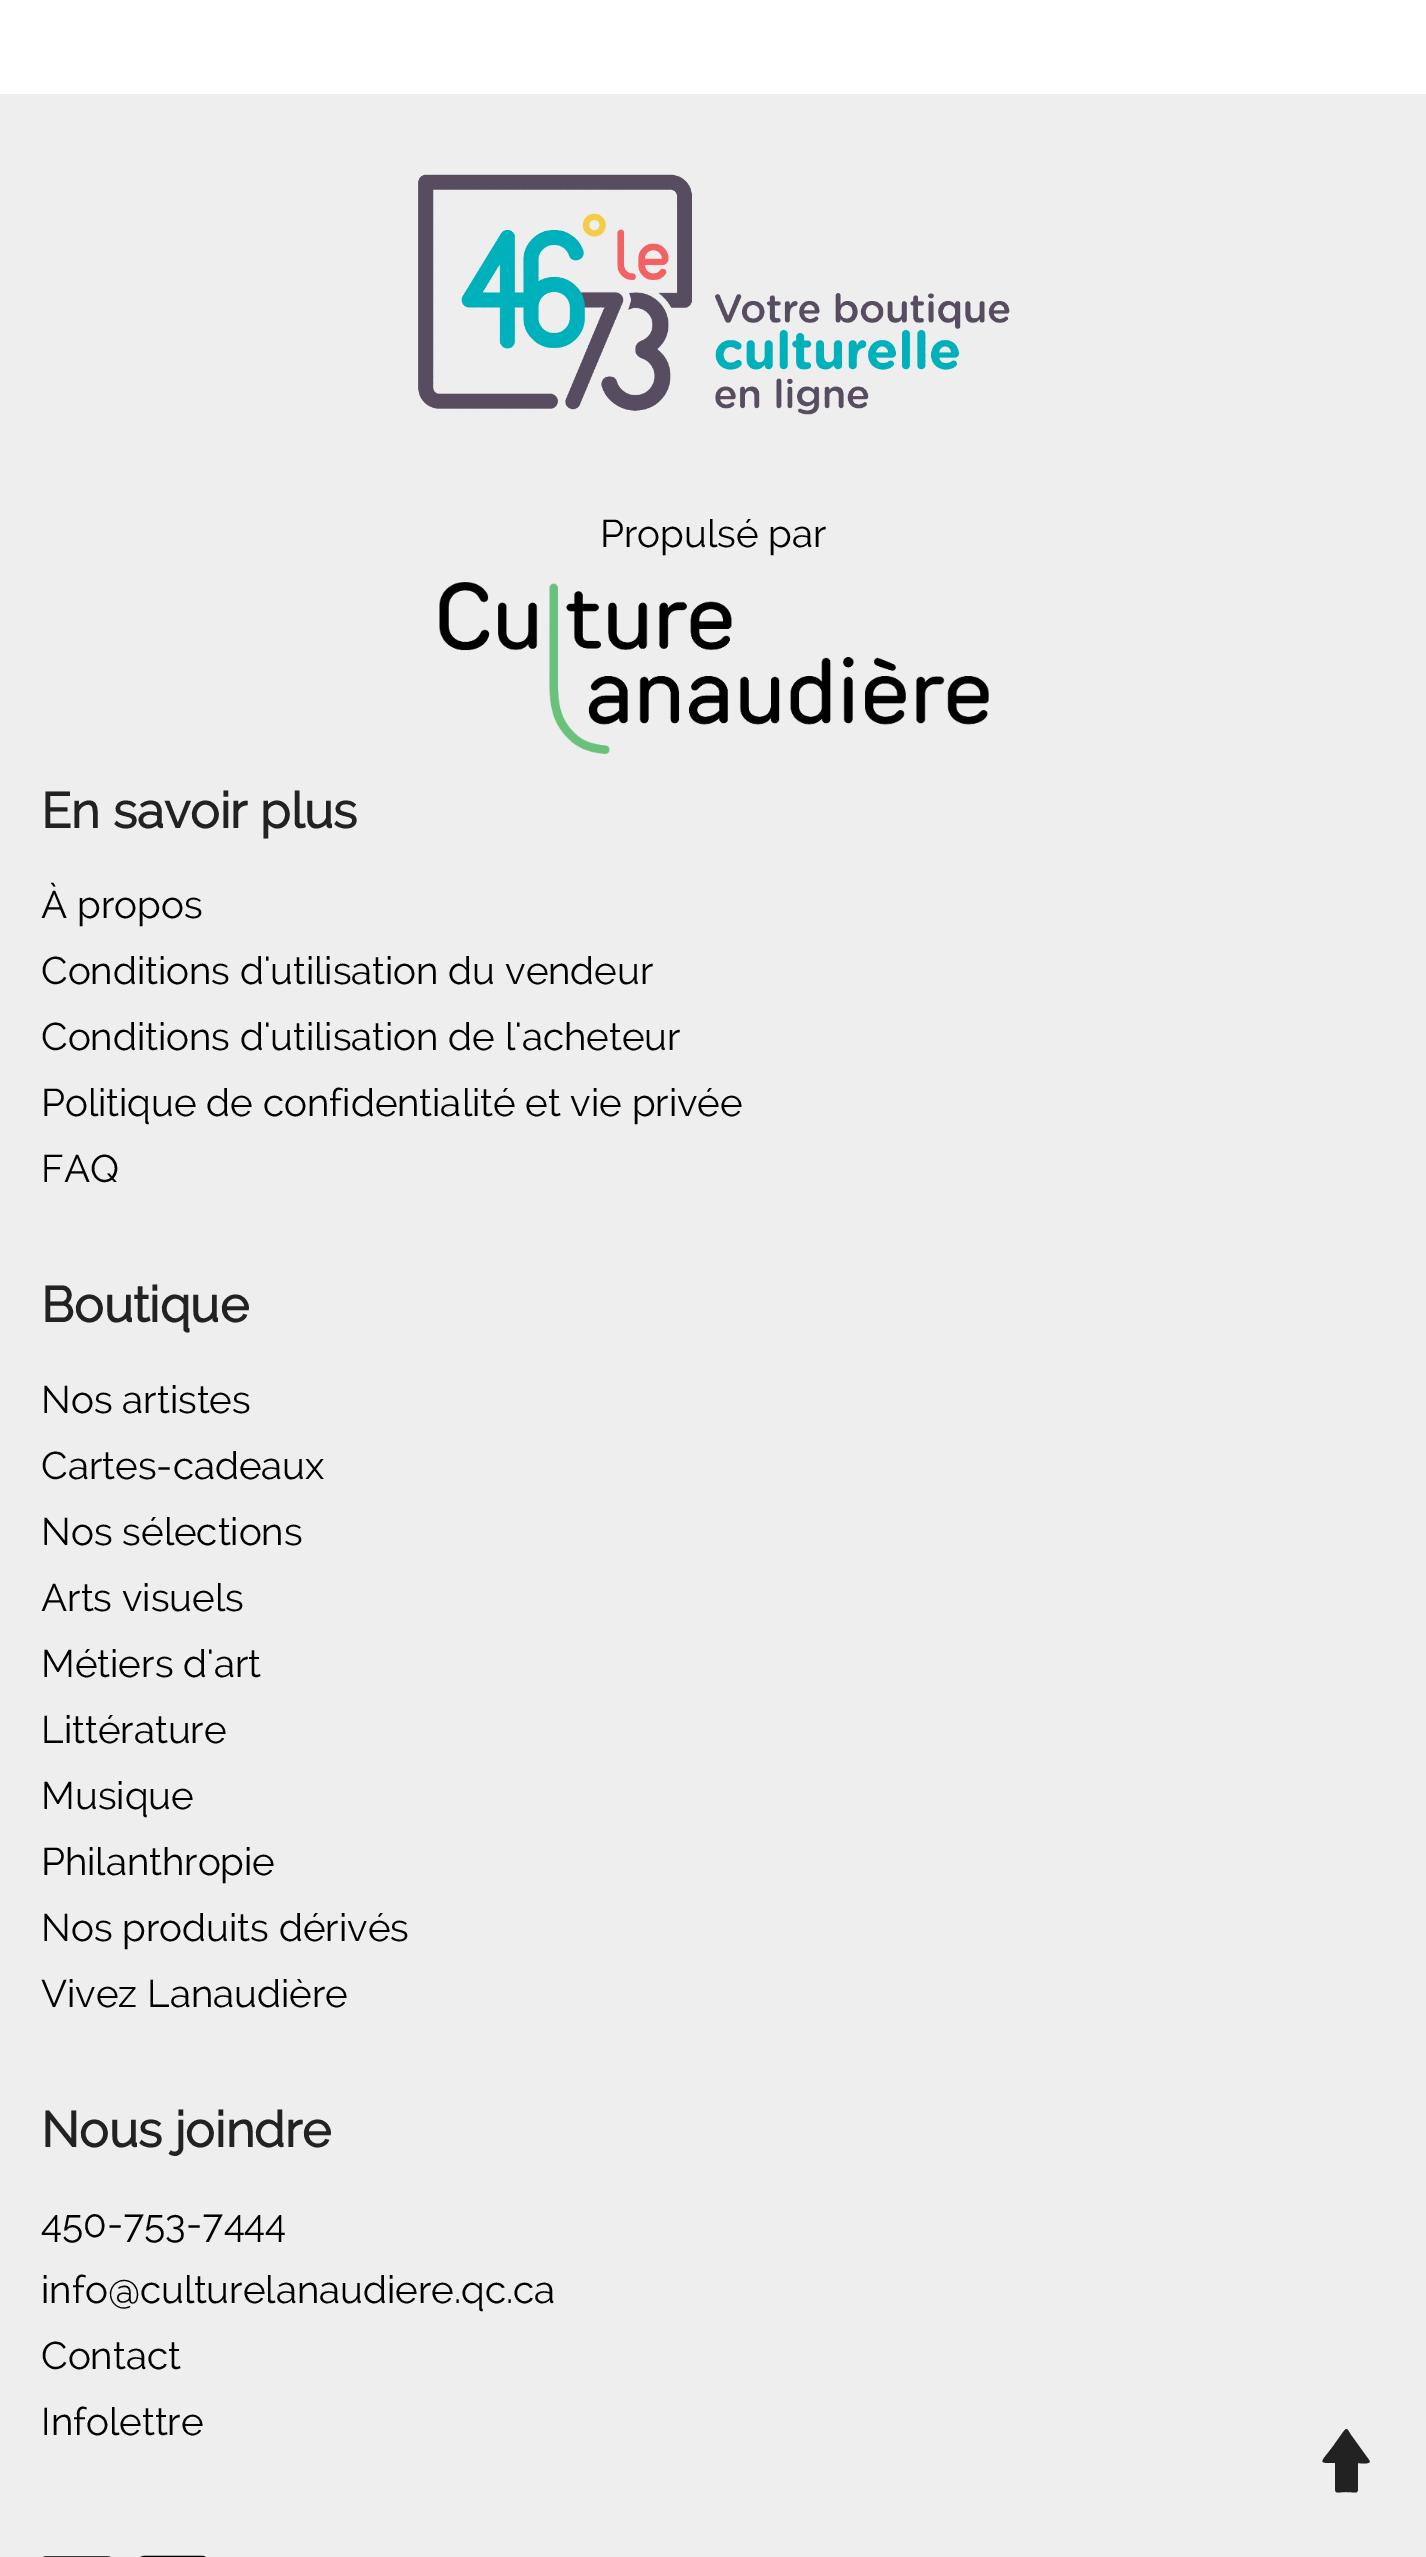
%!PS
<< /PageSize [1426 2557] >> setpagedevice
/mt/moveto load def
/li/lineto load def
/ct/curveto load def
/cp/closepath load def
/fl/fill load def
/co { dup -16 bitshift 255 div exch dup -8 bitshift 255 and 255 div exch 255 and 255 div setrgbcolor } def
/fn { [ exch dup neg 0 0 3 -1 roll 0 0 ] selectfont } def
/tx { co fn moveto show } def
/bx { co rectfill } def
/im { 5 dict begin { /h /w /y /x /name } { exch def } forall
  gsave x y translate w h scale
  w h 8 [w 0 0 h 0 0] name (r) file false 3 colorimage grestore end } def
0 2557 translate 1 -1 scale
4 setmiterlimit
0 0 1426 2557 16#FFFFFF bx
0 94 1426 2463 16#EEEEEE bx
(media/1.raw) 418 174 592 241 im
(media/2.raw) 439 582 550 172 im
(media/3.raw) 43 2556 68 1 im
(media/4.raw) 140 2555 66 2 im
16#222222 co
1369 2460 mt 1373 2465 1358 2463 1358 2463 ct 1358 2486 li 1358 2495 1357 2492 1346 2492 ct 1336 2492 1335 2495 1335 2486 ct 1335 2463 li 1316 2463 1321 2463 1334 2445 ct 1341 2435 li 1347 2427 1346 2427 1351 2435 ct cp fl
(Propulsé par) 600 547 /Raleway-Regular 38.5 16#000000 tx
(En savoir plus) 41 828 /Raleway-Bold 49.5 16#222222 tx
(À propos) 41 918 /Raleway-Regular 38.5 16#000000 tx
(Conditions d'utilisation du vendeur) 41 984 /Raleway-Regular 38.5 16#000000 tx
(Conditions d'utilisation de l'acheteur) 41 1050 /Raleway-Regular 38.5 16#000000 tx
(Politique de confidentialité et vie privée) 41 1116 /Raleway-Regular 38.5 16#000000 tx
(FAQ) 41 1182 /Raleway-Regular 38.5 16#000000 tx
(Boutique) 41 1322 /Raleway-Bold 49.5 16#222222 tx
(Nos artistes) 41 1413 /Raleway-Regular 38.5 16#000000 tx
(Cartes-cadeaux) 41 1479 /Raleway-Regular 38.5 16#000000 tx
(Nos sélections) 41 1545 /Raleway-Regular 38.5 16#000000 tx
(Arts visuels) 41 1611 /Raleway-Regular 38.5 16#000000 tx
(Métiers d'art) 41 1677 /Raleway-Regular 38.5 16#000000 tx
(Littérature) 41 1743 /Raleway-Regular 38.5 16#000000 tx
(Musique) 41 1809 /Raleway-Regular 38.5 16#000000 tx
(Philanthropie) 41 1875 /Raleway-Regular 38.5 16#000000 tx
(Nos produits dérivés) 41 1941 /Raleway-Regular 38.5 16#000000 tx
(Vivez Lanaudière) 41 2007 /Raleway-Regular 38.5 16#000000 tx
(Nous joindre) 41 2147 /Raleway-Bold 49.5 16#222222 tx
(450-753-7444) 41 2237 /Raleway-Regular 38.5 16#000000 tx
(info@culturelanaudiere.qc.ca) 41 2303 /Raleway-Regular 38.5 16#000000 tx
(Contact) 41 2369 /Raleway-Regular 38.5 16#000000 tx
(Infolettre) 41 2435 /Raleway-Regular 38.5 16#000000 tx
showpage
